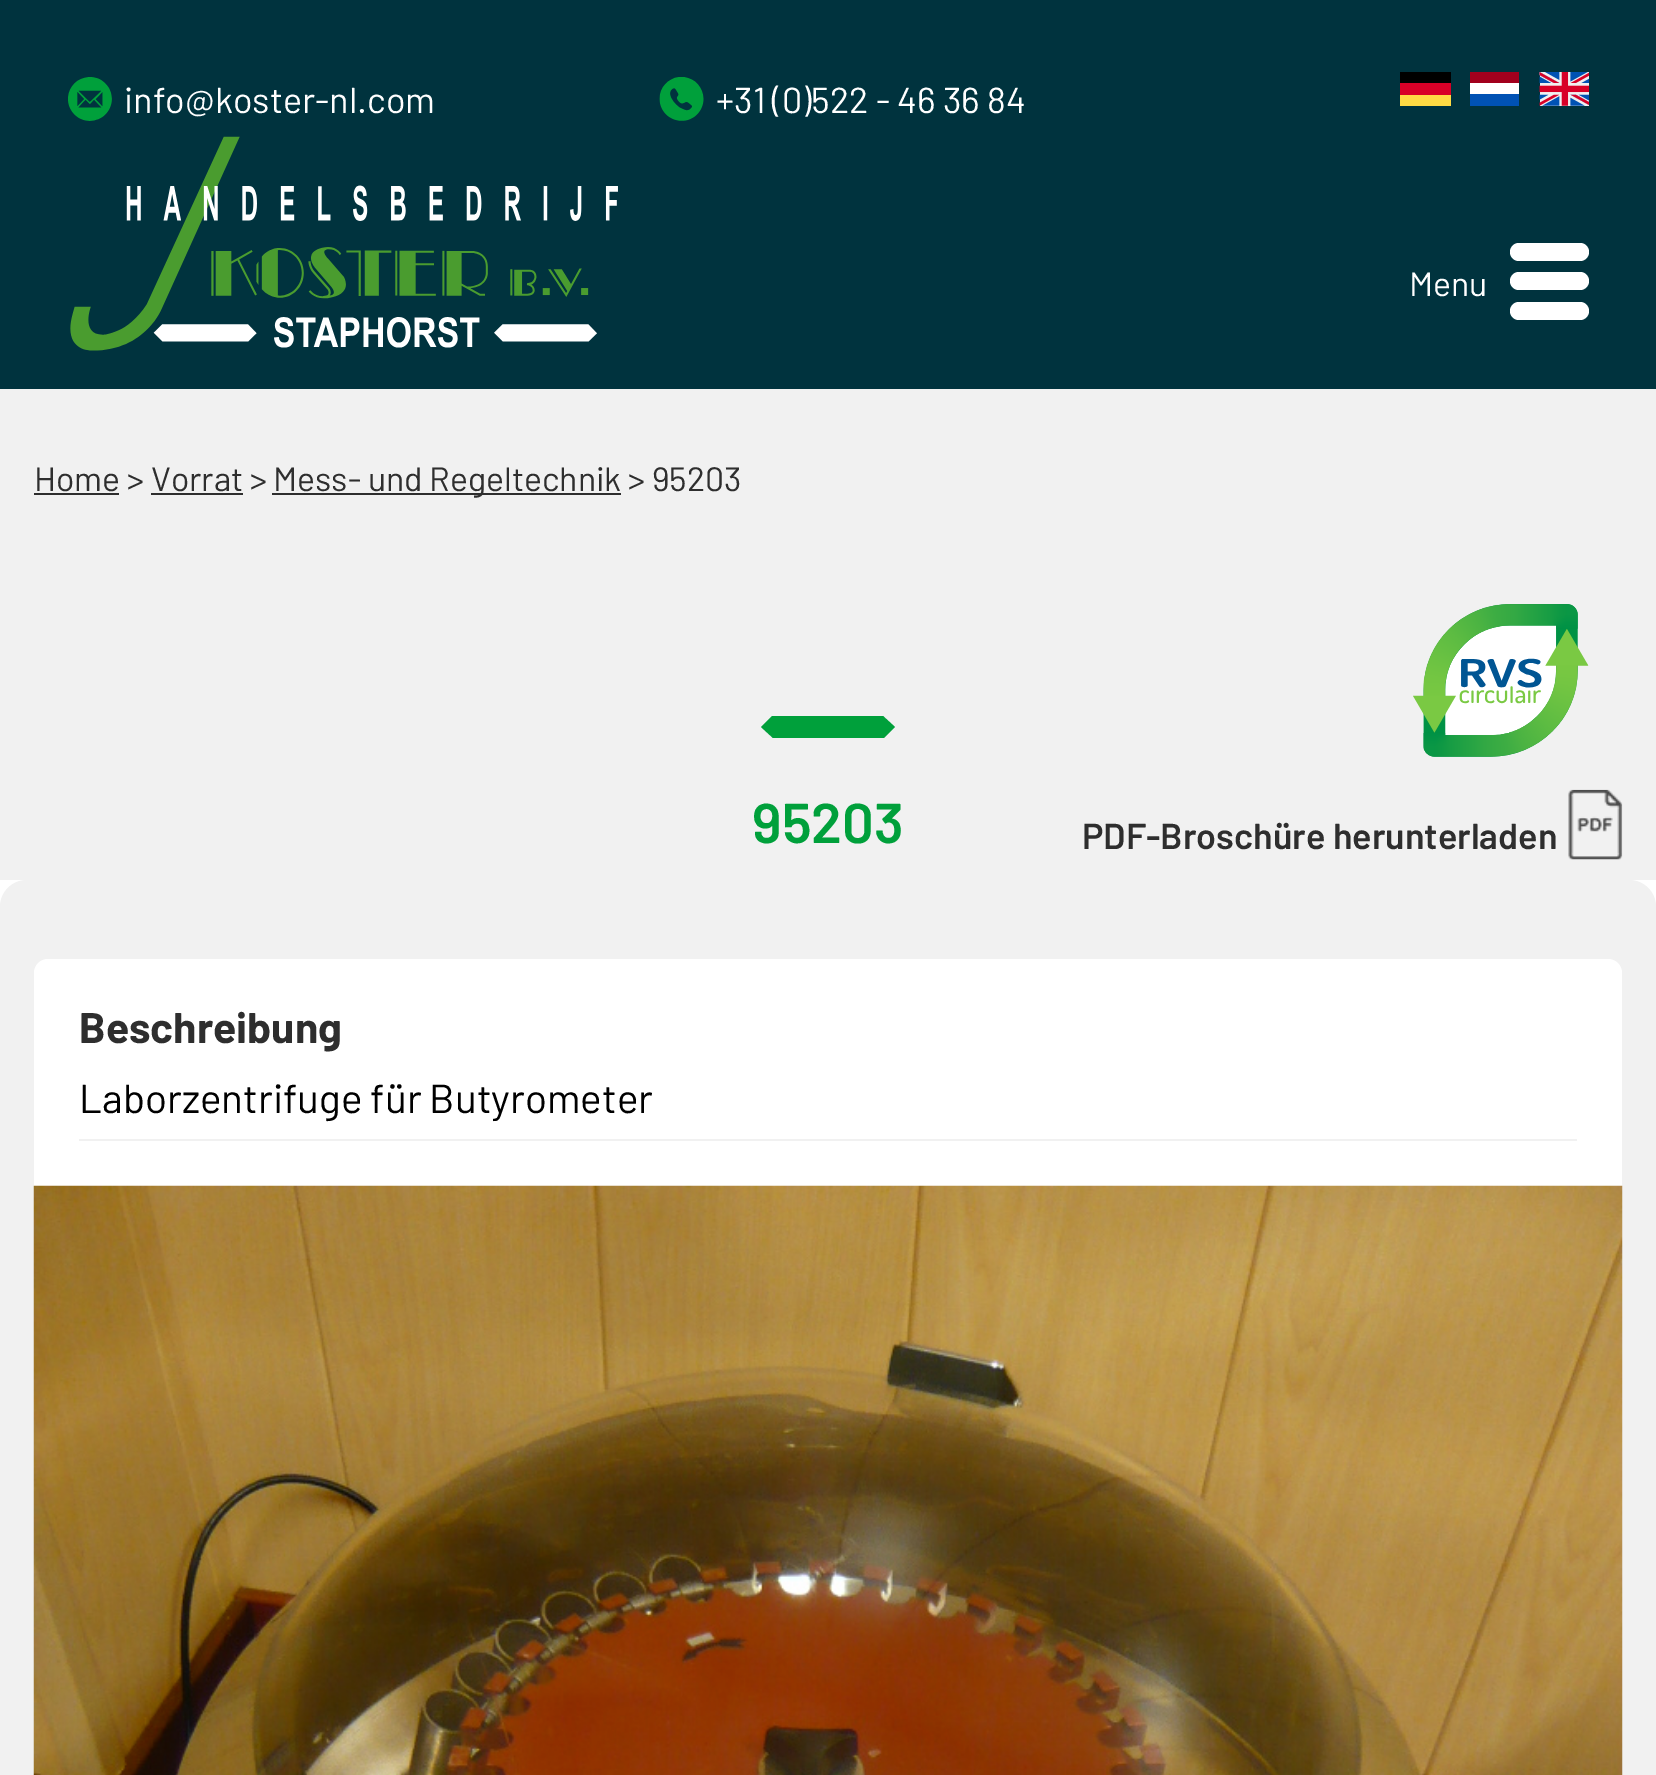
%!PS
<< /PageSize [1656 1775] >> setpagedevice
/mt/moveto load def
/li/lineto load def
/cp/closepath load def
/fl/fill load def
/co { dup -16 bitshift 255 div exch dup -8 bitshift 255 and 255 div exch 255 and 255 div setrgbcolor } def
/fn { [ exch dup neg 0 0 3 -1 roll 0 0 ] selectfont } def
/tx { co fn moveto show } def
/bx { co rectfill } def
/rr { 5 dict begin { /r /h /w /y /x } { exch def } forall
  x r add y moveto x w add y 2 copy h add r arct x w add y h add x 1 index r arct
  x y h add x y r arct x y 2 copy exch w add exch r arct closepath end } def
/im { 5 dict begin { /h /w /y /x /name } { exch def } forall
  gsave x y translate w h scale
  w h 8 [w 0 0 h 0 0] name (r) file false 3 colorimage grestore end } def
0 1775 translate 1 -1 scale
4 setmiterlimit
0 0 1656 1775 16#FFFFFF bx
0 0 1656 389 16#00333E bx
(media/1.raw) 68 77 44 44 im
(media/2.raw) 659 77 45 44 im
1400 72 51 11 16#000000 bx
1400 83 51 12 16#D80027 bx
1400 95 51 11 16#FFDA44 bx
1470 72 49 11 16#A2001D bx
1470 83 49 11 16#FFFFFF bx
1470 94 49 12 16#0052B4 bx
(media/3.raw) 1539 72 50 34 im
(media/4.raw) 70 136 548 215 im
16#FFFFFF co
1510 243 79 18 9 rr fl
1510 272 79 18 9 rr fl
1510 302 79 18 9 rr fl
0 389 1656 491 16#F1F1F1 bx
34 493 85 2 16#2E2E2E bx
151 493 92 2 16#2E2E2E bx
272 493 349 2 16#2E2E2E bx
16#00A03B co
772 716 mt 761 727 li 773 738 li 884 738 li 895 727 li 883 716 li cp fl
(media/5.raw) 1413 604 176 153 im
(media/6.raw) 1568 789 55 71 im
16#F1F1F1 co
0 880 1656 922 27 rr fl
16#FFFFFF co
34 959 1588 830 14 rr fl
79 1139 1498 2 16#F1F1F1 bx
(media/7.raw) 33 1185 1590 590 im
(info@koster-nl.com) 124 113 /Barlow-Regular 36 16#FFFFFF tx
(+31 \(0\)522 - 46 36 84) 716 113 /Barlow-Regular 36 16#FFFFFF tx
(Menu) 1409 296 /Barlow-Regular 33.75 16#FFFFFF tx
(Home > Vorrat >) 34 491 /Barlow-Regular 33.75 16#2E2E2E tx
(Mess- und Regeltechnik > 95203) 273 491 /Barlow-Regular 33.75 16#2E2E2E tx
(95203) 752 843 /Barlow-SemiBold 56 16#00A03B tx
(PDF-Broschüre herunterladen) 1082 849 /Barlow-SemiBold 36 16#2E2E2E tx
(Beschreibung) 79 1043 /Barlow-Bold 42.75 16#2E2E2E tx
(Laborzentrifuge für Butyrometer) 79 1113 /Barlow-Regular 40.5 16#000000 tx
showpage
